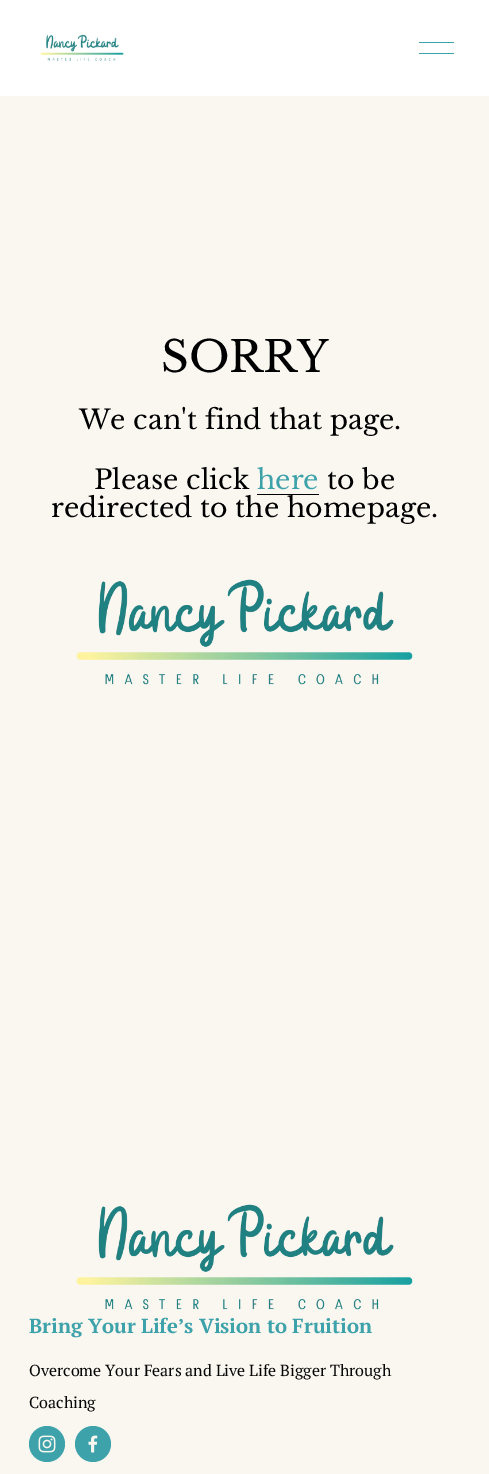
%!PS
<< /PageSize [489 1474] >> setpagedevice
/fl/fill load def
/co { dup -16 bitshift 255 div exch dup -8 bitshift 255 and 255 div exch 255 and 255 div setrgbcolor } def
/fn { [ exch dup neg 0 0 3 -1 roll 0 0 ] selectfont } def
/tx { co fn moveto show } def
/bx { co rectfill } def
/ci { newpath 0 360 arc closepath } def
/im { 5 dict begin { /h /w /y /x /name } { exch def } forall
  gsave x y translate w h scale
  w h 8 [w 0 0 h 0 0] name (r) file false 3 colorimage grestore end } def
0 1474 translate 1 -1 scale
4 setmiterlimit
0 0 489 1474 16#FAF7F1 bx
0 0 489 96 16#FFFFFF bx
(media/1.raw) 40 34 84 27 im
419 42 35 1 16#3EA2AA bx
419 53 35 1 16#3EA2AA bx
257 494 62 1 16#000000 bx
(media/2.raw) 76 579 337 106 im
(media/3.raw) 76 1204 337 106 im
16#3EA2AA co
47 1444 18 ci fl
(media/4.raw) 38 1435 18 18 im
93 1444 18 ci fl
(media/5.raw) 88 1435 10 18 im
(SORRY) 161 372 /LibreBaskerville-Regular 43 16#000000 tx
(We can't find that page.) 79 429 /LibreBaskerville-Regular 26.75 16#000000 tx
(Please click) 94 489 /LibreBaskerville-Regular 26.75 16#000000 tx
(here) 257 489 /LibreBaskerville-Regular 26.75 16#3EA2AA tx
(to be) 327 489 /LibreBaskerville-Regular 26.75 16#000000 tx
(redirected to the homepage.) 51 517 /LibreBaskerville-Regular 26.75 16#000000 tx
(Bring Your Life’s Vision to Fruition) 29 1333 /PTSerif-Bold 20.3 16#3EA2AA tx
(Overcome Your Fears and Live Life Bigger Through) 29 1376 /PTSerif-Regular 16 16#060606 tx
(Coaching) 29 1408 /PTSerif-Regular 16 16#060606 tx
showpage
